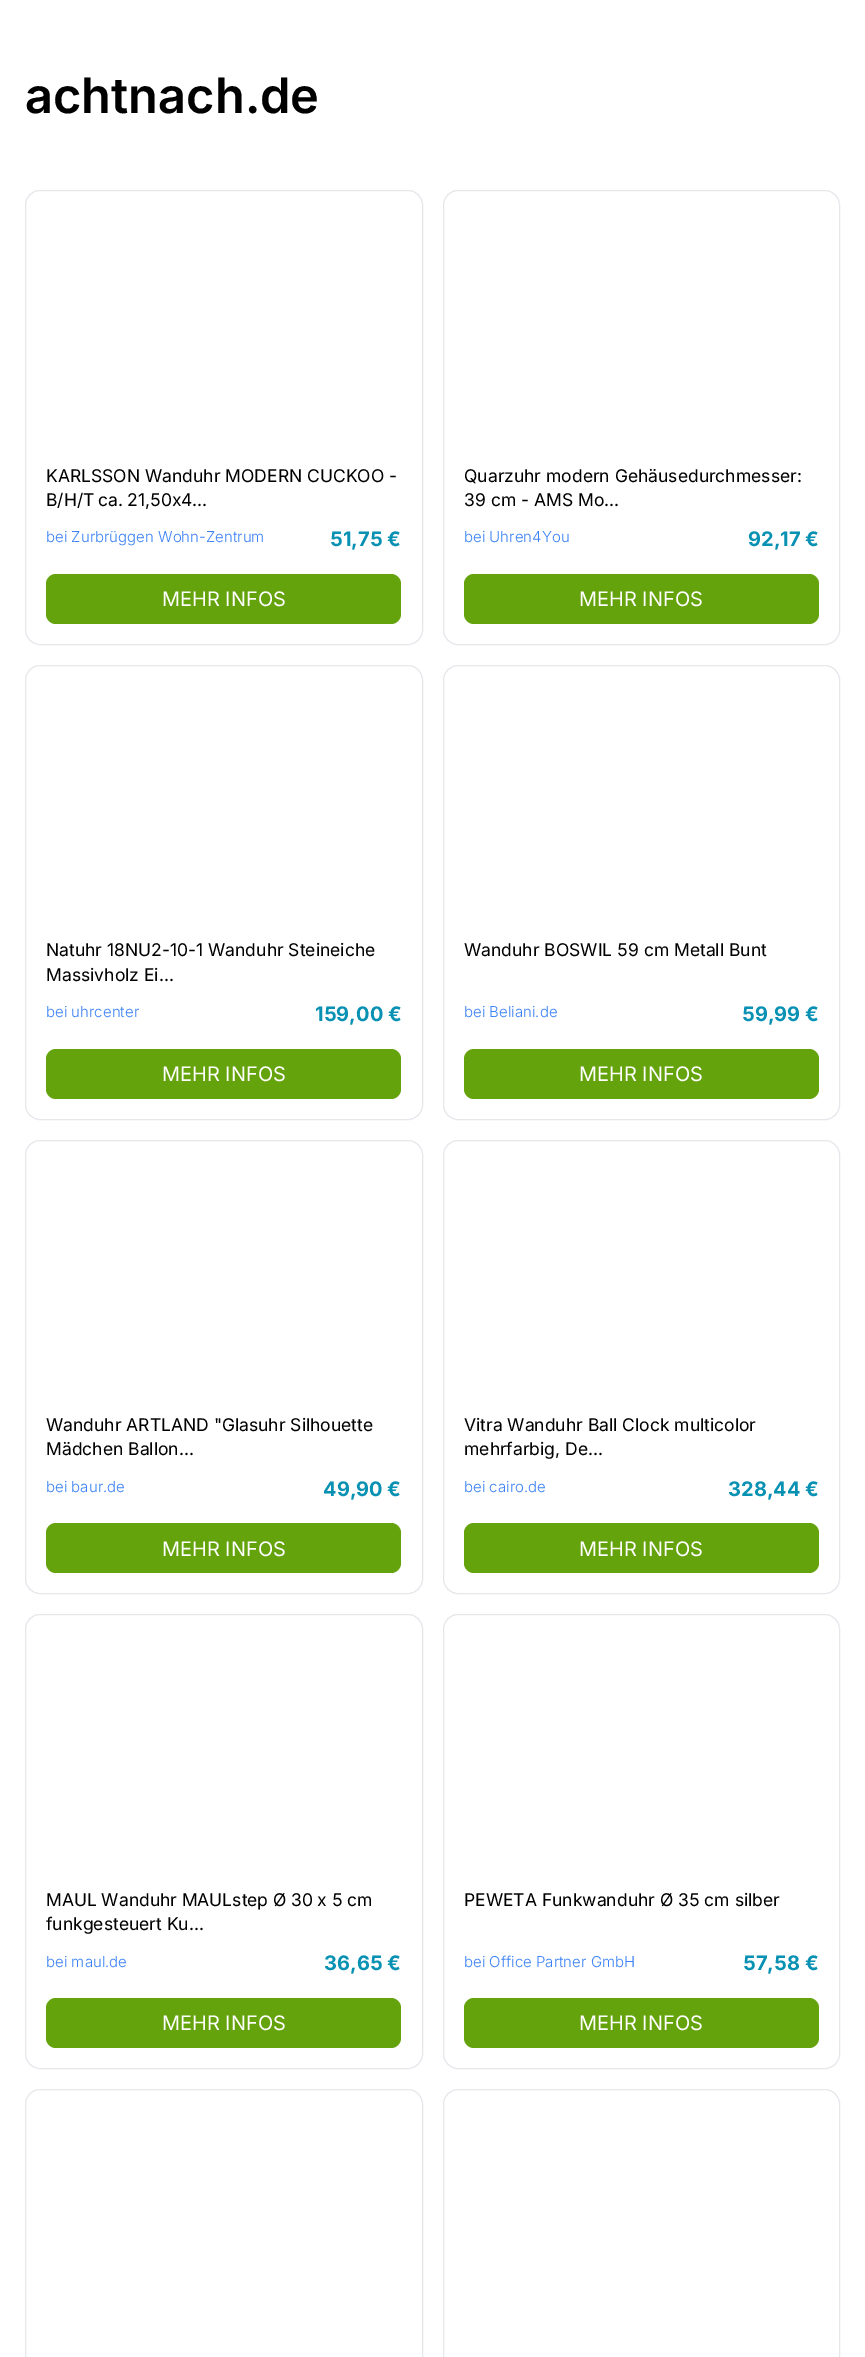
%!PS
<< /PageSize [865 2357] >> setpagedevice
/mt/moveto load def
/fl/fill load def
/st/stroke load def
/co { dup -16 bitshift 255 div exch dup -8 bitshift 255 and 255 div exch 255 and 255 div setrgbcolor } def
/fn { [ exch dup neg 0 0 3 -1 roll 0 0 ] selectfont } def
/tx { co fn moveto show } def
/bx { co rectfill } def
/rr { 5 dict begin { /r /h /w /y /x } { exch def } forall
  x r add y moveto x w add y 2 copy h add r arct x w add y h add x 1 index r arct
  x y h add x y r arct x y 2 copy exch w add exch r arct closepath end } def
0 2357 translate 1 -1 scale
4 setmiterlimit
0 0 865 2357 16#FFFFFF bx
16#E5E7EB co
25.5 190.5 397 454 14.5 rr st
16#65A30D co
46 574 355 50 10 rr fl
16#E5E7EB co
443.5 190.5 396 454 14.5 rr st
16#65A30D co
464 574 355 50 10 rr fl
16#E5E7EB co
25.5 665.5 397 454 14.5 rr st
16#65A30D co
46 1049 355 50 10 rr fl
16#E5E7EB co
443.5 665.5 396 454 14.5 rr st
16#65A30D co
464 1049 355 50 10 rr fl
16#E5E7EB co
25.5 1140.5 397 453 14.5 rr st
16#65A30D co
46 1523 355 50 10 rr fl
16#E5E7EB co
443.5 1140.5 396 453 14.5 rr st
16#65A30D co
464 1523 355 50 10 rr fl
16#E5E7EB co
25.5 1614.5 397 454 14.5 rr st
16#65A30D co
46 1998 355 50 10 rr fl
16#E5E7EB co
443.5 1614.5 396 454 14.5 rr st
16#65A30D co
464 1998 355 50 10 rr fl
16#E5E7EB co
25.5 2089.5 397 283 14.5 rr st
443.5 2089.5 396 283 14.5 rr st
(achtnach.de) 25 113 /Inter-SemiBold 48.75 16#000000 tx
(KARLSSON Wanduhr MODERN CUCKOO -) 46 482 /Inter-Regular 17.5 16#000000 tx
46 506 mt -1 0 32 (B/H/T ca. 21,50x4...) widthshow
(bei Zurbrüggen Wohn-Zentrum) 46 542 /Inter-Light 15 16#3B82F6 tx
(51,75 €) 330 546 /Inter-Bold 20 16#0891B2 tx
(MEHR INFOS) 162 606 /Inter-Regular 20 16#FFFFFF tx
(Quarzuhr modern Gehäusedurchmesser:) 464 482 /Inter-Regular 17.5 16#000000 tx
(39 cm - AMS Mo...) 464 506 /Inter-Regular 17.5 16#000000 tx
(bei Uhren4You) 464 542 /Inter-Light 15 16#3B82F6 tx
(92,17 €) 748 546 /Inter-Bold 20 16#0891B2 tx
(MEHR INFOS) 579 606 /Inter-Regular 20 16#FFFFFF tx
(Natuhr 18NU2-10-1 Wanduhr Steineiche) 46 956 /Inter-Regular 17.5 16#000000 tx
(Massivholz Ei...) 46 981 /Inter-Regular 17.5 16#000000 tx
(bei uhrcenter) 46 1017 /Inter-Light 15 16#3B82F6 tx
(159,00 €) 315 1021 /Inter-Bold 20 16#0891B2 tx
(MEHR INFOS) 162 1081 /Inter-Regular 20 16#FFFFFF tx
(Wanduhr BOSWIL 59 cm Metall Bunt) 464 956 /Inter-Regular 17.5 16#000000 tx
(bei Beliani.de) 464 1017 /Inter-Light 15 16#3B82F6 tx
(59,99 €) 742 1021 /Inter-Bold 20 16#0891B2 tx
(MEHR INFOS) 579 1081 /Inter-Regular 20 16#FFFFFF tx
(Wanduhr ARTLAND "Glasuhr Silhouette) 46 1431 /Inter-Regular 17.5 16#000000 tx
(Mädchen Ballon...) 46 1455 /Inter-Regular 17.5 16#000000 tx
(bei baur.de) 46 1492 /Inter-Light 15 16#3B82F6 tx
(49,90 €) 323 1496 /Inter-Bold 20 16#0891B2 tx
(MEHR INFOS) 162 1556 /Inter-Regular 20 16#FFFFFF tx
(Vitra Wanduhr Ball Clock multicolor) 464 1431 /Inter-Regular 17.5 16#000000 tx
(mehrfarbig, De...) 464 1455 /Inter-Regular 17.5 16#000000 tx
(bei cairo.de) 464 1492 /Inter-Light 15 16#3B82F6 tx
(328,44 €) 728 1496 /Inter-Bold 20 16#0891B2 tx
(MEHR INFOS) 579 1556 /Inter-Regular 20 16#FFFFFF tx
/Inter-Regular 17.5 fn
16#000000 co
46 1906 mt -.25 0 32 (MAUL Wanduhr MAULstep Ø 30 x 5 cm) widthshow
(funkgesteuert Ku...) 46 1930 /Inter-Regular 17.5 16#000000 tx
(bei maul.de) 46 1967 /Inter-Light 15 16#3B82F6 tx
(36,65 €) 324 1970 /Inter-Bold 20 16#0891B2 tx
(MEHR INFOS) 162 2030 /Inter-Regular 20 16#FFFFFF tx
(PEWETA Funkwanduhr Ø 35 cm silber) 464 1906 /Inter-Regular 17.5 16#000000 tx
(bei Office Partner GmbH) 464 1967 /Inter-Light 15 16#3B82F6 tx
(57,58 €) 743 1970 /Inter-Bold 20 16#0891B2 tx
(MEHR INFOS) 579 2030 /Inter-Regular 20 16#FFFFFF tx
showpage
